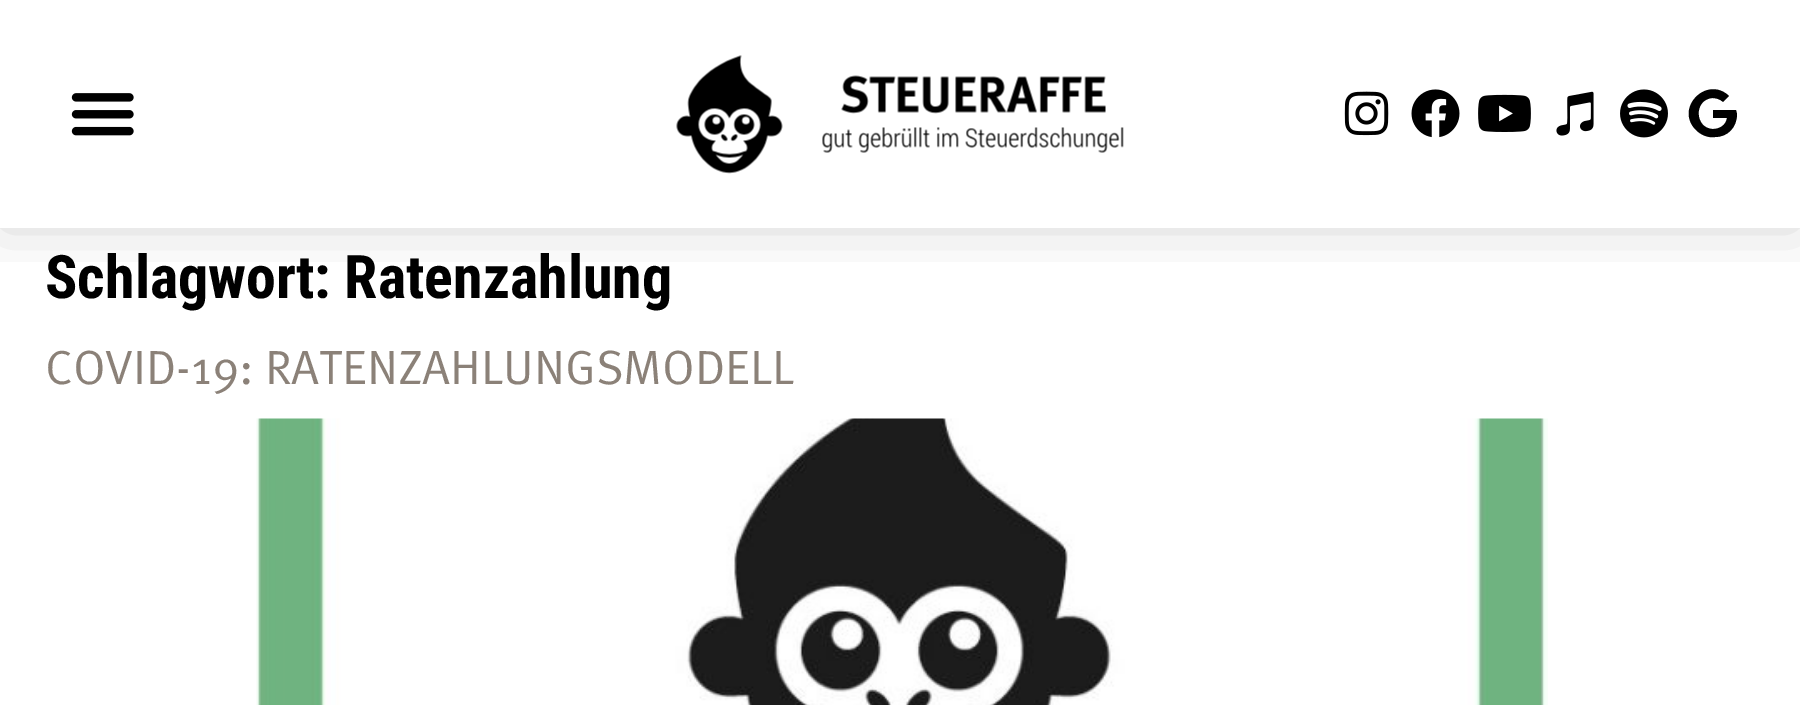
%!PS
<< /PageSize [1800 705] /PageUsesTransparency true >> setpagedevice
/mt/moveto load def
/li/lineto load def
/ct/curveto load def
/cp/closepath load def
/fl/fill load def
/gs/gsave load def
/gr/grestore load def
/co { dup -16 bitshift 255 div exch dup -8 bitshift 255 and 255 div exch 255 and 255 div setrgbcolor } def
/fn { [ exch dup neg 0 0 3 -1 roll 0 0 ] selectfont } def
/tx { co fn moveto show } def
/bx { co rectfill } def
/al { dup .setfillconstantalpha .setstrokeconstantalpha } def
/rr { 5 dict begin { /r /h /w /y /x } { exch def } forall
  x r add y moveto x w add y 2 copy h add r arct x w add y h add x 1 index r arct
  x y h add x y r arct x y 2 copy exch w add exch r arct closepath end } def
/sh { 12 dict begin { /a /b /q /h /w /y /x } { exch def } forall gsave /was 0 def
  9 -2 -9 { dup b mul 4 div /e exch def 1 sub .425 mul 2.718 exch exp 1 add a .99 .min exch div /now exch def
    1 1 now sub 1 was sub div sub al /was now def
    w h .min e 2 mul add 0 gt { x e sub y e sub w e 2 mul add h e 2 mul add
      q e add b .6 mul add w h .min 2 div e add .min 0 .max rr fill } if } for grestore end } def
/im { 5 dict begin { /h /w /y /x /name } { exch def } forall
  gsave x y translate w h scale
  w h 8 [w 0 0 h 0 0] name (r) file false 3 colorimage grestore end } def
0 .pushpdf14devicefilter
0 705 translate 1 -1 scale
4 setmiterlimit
0 0 1800 705 16#FFFFFF bx
gs
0 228 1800 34 rectclip
16#000000 co
0 0 1800 228 0 30 .16 sh
gr
(media/1.raw) 71 93 63 43 im
(media/2.raw) 676 55 448 119 im
(media/3.raw) 1344 91 45 45 im
(media/4.raw) 1411 89 49 49 im
(media/5.raw) 1478 94 53 38 im
(media/6.raw) 1556 91 38 45 im
(media/7.raw) 1620 89 48 49 im
16#000000 co
1737 114 mt 1737 127 1728 137 1715 137 ct 1708 138 1701 135 1696 130 ct 1674 108 1707 75 1729 96 ct 1723 102 li 1720 99 1716 98 1712 98 ct 1693 100 1695 129 1713 129 ct 1720 129 1726 125 1727 118 ct 1713 118 li 1713 110 li 1736 110 li cp fl
(media/8.raw) 256 418 1292 287 im
(Schlagwort: Ratenzahlung) 45 298 /RobotoCondensed-Bold 60 16#000000 tx
(COVID-19: RATENZAHLUNGSMODELL) 45 384 /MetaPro-Regular 48 16#8B8178 tx
.poppdf14devicefilter showpage
